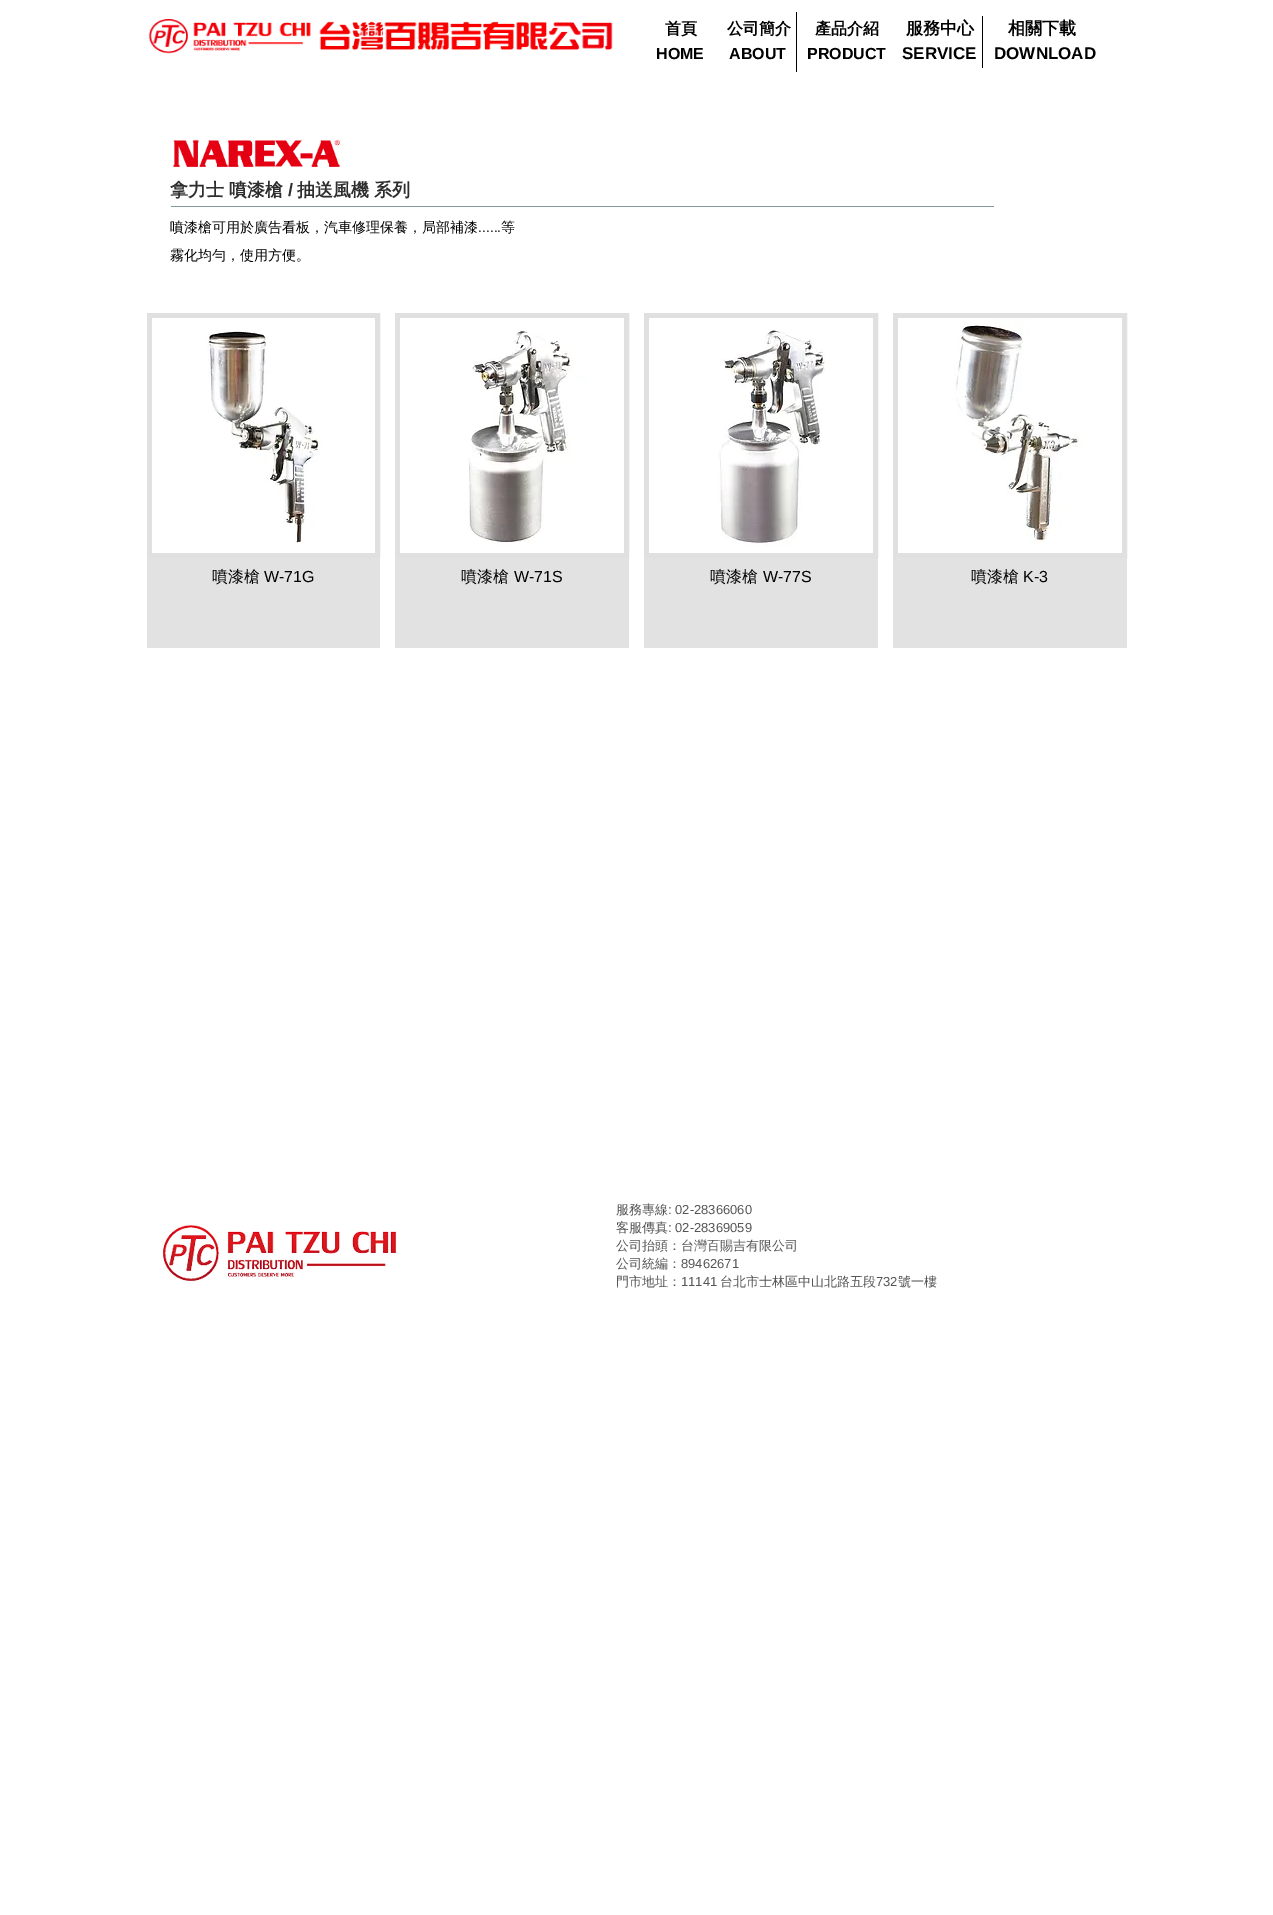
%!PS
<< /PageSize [1273 1915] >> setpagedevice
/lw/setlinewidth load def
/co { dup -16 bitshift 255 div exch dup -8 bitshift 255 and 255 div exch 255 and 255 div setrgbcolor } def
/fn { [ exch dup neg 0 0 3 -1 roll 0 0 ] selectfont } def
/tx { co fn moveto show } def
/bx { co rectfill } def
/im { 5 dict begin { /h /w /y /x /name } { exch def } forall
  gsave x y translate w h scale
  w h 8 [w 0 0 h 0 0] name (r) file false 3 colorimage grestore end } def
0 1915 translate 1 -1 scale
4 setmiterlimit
0 0 1273 1915 16#FFFFFF bx
(media/1.raw) 148 19 465 35 im
796 12 1 60 16#000000 bx
982 16 1 52 16#000000 bx
(media/2.raw) 173 140 168 27 im
171 206 823 1 16#829A9F bx
16#E0E0E0 co
5 lw
149.5 315.5 228 240 rectstroke
(media/3.raw) 152 318 223 235 im
147 558 233 90 16#E2E2E2 bx
16#E0E0E0 co
397.5 315.5 229 240 rectstroke
(media/4.raw) 400 318 224 235 im
395 558 234 90 16#E2E2E2 bx
16#E0E0E0 co
646.5 315.5 229 240 rectstroke
(media/5.raw) 649 318 224 235 im
644 558 234 90 16#E2E2E2 bx
16#E0E0E0 co
895.5 315.5 229 240 rectstroke
(media/6.raw) 898 318 224 235 im
893 558 234 90 16#E2E2E2 bx
(media/7.raw) 163 1225 234 56 im
(首頁) 665 34 /WenQuanYiZenHei-Bold 16 16#000000 tx
(公司簡介) 727 34 /WenQuanYiZenHei-Bold 16 16#000000 tx
(產品介紹) 815 34 /WenQuanYiZenHei-Bold 16 16#000000 tx
(服務中心) 906 34 /WenQuanYiZenHei-Bold 17 16#000000 tx
(相關下載) 1008 34 /WenQuanYiZenHei-Bold 17 16#000000 tx
(HOME) 656 59 /LiberationSans-Bold 16 16#000000 tx
(ABOUT) 729 59 /LiberationSans-Bold 16 16#000000 tx
(PRODUCT) 807 59 /LiberationSans-Bold 16 16#000000 tx
(SERVICE) 902 59 /LiberationSans-Bold 17 16#000000 tx
(DOWNLOAD) 994 59 /LiberationSans-Bold 17 16#000000 tx
(拿力士 噴漆槍) 170 196 /WenQuanYiZenHei-Bold 18 16#2F2E2E tx
(/) 288 196 /LiberationSans-Bold 18 16#2F2E2E tx
(抽送風機 系列) 297 196 /WenQuanYiZenHei-Bold 18 16#2F2E2E tx
(噴漆槍可用於廣告看板，汽車修理保養，局部補漆) 170 232 /WenQuanYiZenHei-Medium 14 16#000000 tx
(......) 478 232 /LiberationSans-Regular 14 16#000000 tx
(等) 501 232 /WenQuanYiZenHei-Medium 14 16#000000 tx
(霧化均勻，使用方便。) 170 260 /WenQuanYiZenHei-Medium 14 16#000000 tx
(噴漆槍) 212 582 /WenQuanYiZenHei-Medium 16 16#000000 tx
(W-71G) 264 582 /LiberationSans-Regular 16 16#000000 tx
(噴漆槍) 461 582 /WenQuanYiZenHei-Medium 16 16#000000 tx
(W-71S) 514 582 /LiberationSans-Regular 16 16#000000 tx
(噴漆槍) 710 582 /WenQuanYiZenHei-Medium 16 16#000000 tx
(W-77S) 763 582 /LiberationSans-Regular 16 16#000000 tx
(噴漆槍) 971 582 /WenQuanYiZenHei-Medium 16 16#000000 tx
(K-3) 1023 582 /LiberationSans-Regular 16 16#000000 tx
(服務專線) 616 1214 /WenQuanYiZenHei-Medium 13 16#545454 tx
(: 02-28366060) 668 1214 /LiberationSans-Regular 13 16#545454 tx
(客服傳真) 616 1232 /WenQuanYiZenHei-Medium 13 16#545454 tx
(: 02-28369059) 668 1232 /LiberationSans-Regular 13 16#545454 tx
(公司抬頭：台灣百賜吉有限公司) 616 1250 /WenQuanYiZenHei-Medium 13 16#545454 tx
(公司統編：) 616 1268 /WenQuanYiZenHei-Medium 13 16#545454 tx
(89462671) 681 1268 /LiberationSans-Regular 13 16#545454 tx
(門市地址：) 616 1286 /WenQuanYiZenHei-Medium 13 16#545454 tx
(11141) 681 1286 /LiberationSans-Regular 13 16#545454 tx
(台北市士林區中山北路五段) 720 1286 /WenQuanYiZenHei-Medium 13 16#545454 tx
(732) 876 1286 /LiberationSans-Regular 13 16#545454 tx
(號一樓) 898 1286 /WenQuanYiZenHei-Medium 13 16#545454 tx
showpage
